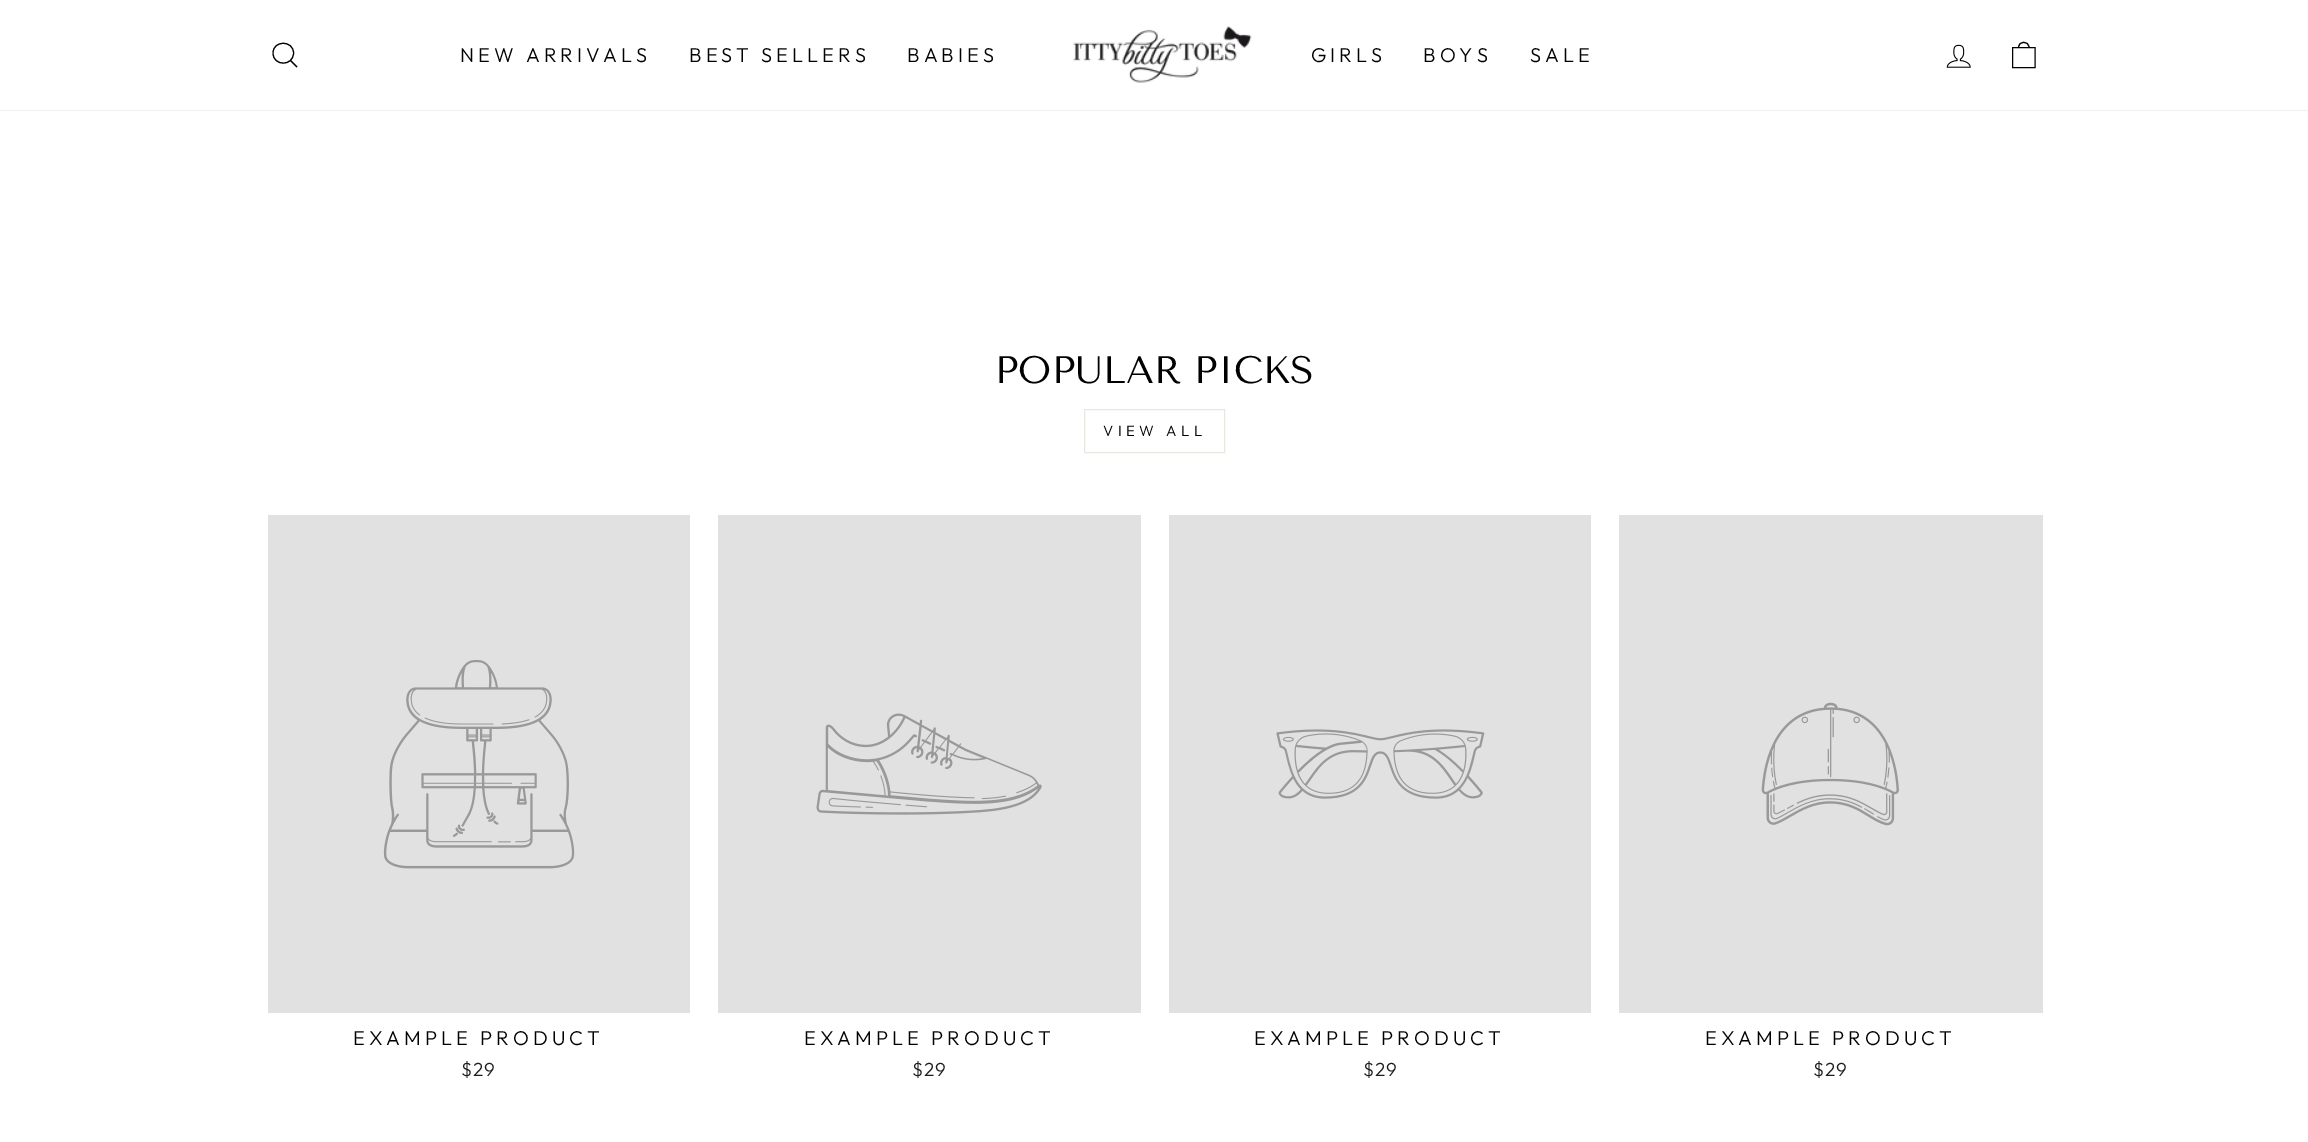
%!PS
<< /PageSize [2308 1142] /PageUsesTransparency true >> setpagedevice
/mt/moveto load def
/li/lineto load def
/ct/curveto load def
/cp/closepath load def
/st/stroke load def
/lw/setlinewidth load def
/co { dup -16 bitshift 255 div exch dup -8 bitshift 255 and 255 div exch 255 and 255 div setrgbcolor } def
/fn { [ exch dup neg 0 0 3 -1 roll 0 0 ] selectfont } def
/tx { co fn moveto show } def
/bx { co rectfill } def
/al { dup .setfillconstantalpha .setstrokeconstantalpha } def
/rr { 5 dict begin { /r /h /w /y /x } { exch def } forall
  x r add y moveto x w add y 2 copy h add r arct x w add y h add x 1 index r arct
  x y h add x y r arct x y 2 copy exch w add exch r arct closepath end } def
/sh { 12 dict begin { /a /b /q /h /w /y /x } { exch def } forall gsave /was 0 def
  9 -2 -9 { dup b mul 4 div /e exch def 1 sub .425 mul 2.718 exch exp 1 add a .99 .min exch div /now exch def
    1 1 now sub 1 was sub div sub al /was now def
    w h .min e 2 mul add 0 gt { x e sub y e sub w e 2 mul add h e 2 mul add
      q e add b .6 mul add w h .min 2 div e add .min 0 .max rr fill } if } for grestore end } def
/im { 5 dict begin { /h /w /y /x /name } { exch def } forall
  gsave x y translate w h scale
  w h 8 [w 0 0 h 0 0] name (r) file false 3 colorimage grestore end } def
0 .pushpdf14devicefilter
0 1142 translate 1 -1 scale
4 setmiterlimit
0 0 2308 1142 16#FFFFFF bx
16#000000 co
0 0 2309 110 0 .5 .2 sh
0 0 2308 110 16#FFFFFF bx
16#000000 co
1.1 lw
293.5 53 mt 293.5 66.5 273 66.5 273 53 ct 273 40 293.5 40 293.5 53 ct cp 297 67 mt 290.5 60.5 li st
(media/1.raw) 1073 26 179 57 im
(media/2.raw) 1946 44 25 24 im
2012.5 47.5 mt 2035 47.5 li 2035 67.5 li 2012.5 67.5 li cp 2018.5 47.5 mt 2018.5 40.5 2029 40.5 2029 47.5 ct st
16#E8E8E1 co
1 lw
1084.5 409.5 140 43 rectstroke
268 515 422 498 16#E1E1E1 bx
(media/3.raw) 383 660 192 209 im
718 515 423 498 16#E1E1E1 bx
(media/4.raw) 816 713 226 102 im
1169 515 422 498 16#E1E1E1 bx
(media/5.raw) 1276 729 209 70 im
1619 515 424 498 16#E1E1E1 bx
(media/6.raw) 1761 702 138 124 im
/Outfit-Light 20 fn
16#000000 co
460 62 mt 4 0 (NEW ARRIVALS) ashow
689 62 mt 4 0 (BEST SELLERS) ashow
907 62 mt 4 0 (BABIES) ashow
1311 62 mt 4 0 (GIRLS) ashow
1423 62 mt 4 0 (BOYS) ashow
1530 62 mt 4 0 (SALE) ashow
(POPULAR PICKS) 995 383 /TenorSans-Regular 38.25 16#000000 tx
/Outfit-Light 15 fn
1103 436 mt 4.5 0 (VIEW ALL) ashow
/Outfit-Light 20 fn
353 1045 mt 4 0 (EXAMPLE PRODUCT) ashow
/Outfit-Light 19 fn
16#1C1D1D co
461 1076 mt .5 0 ($29) ashow
/Outfit-Light 20 fn
16#000000 co
804 1045 mt 4 0 (EXAMPLE PRODUCT) ashow
/Outfit-Light 19 fn
16#1C1D1D co
912 1076 mt .5 0 ($29) ashow
/Outfit-Light 20 fn
16#000000 co
1254 1045 mt 4 0 (EXAMPLE PRODUCT) ashow
/Outfit-Light 19 fn
16#1C1D1D co
1363 1076 mt .5 0 ($29) ashow
/Outfit-Light 20 fn
16#000000 co
1705 1045 mt 4 0 (EXAMPLE PRODUCT) ashow
/Outfit-Light 19 fn
16#1C1D1D co
1813 1076 mt .5 0 ($29) ashow
.poppdf14devicefilter showpage
